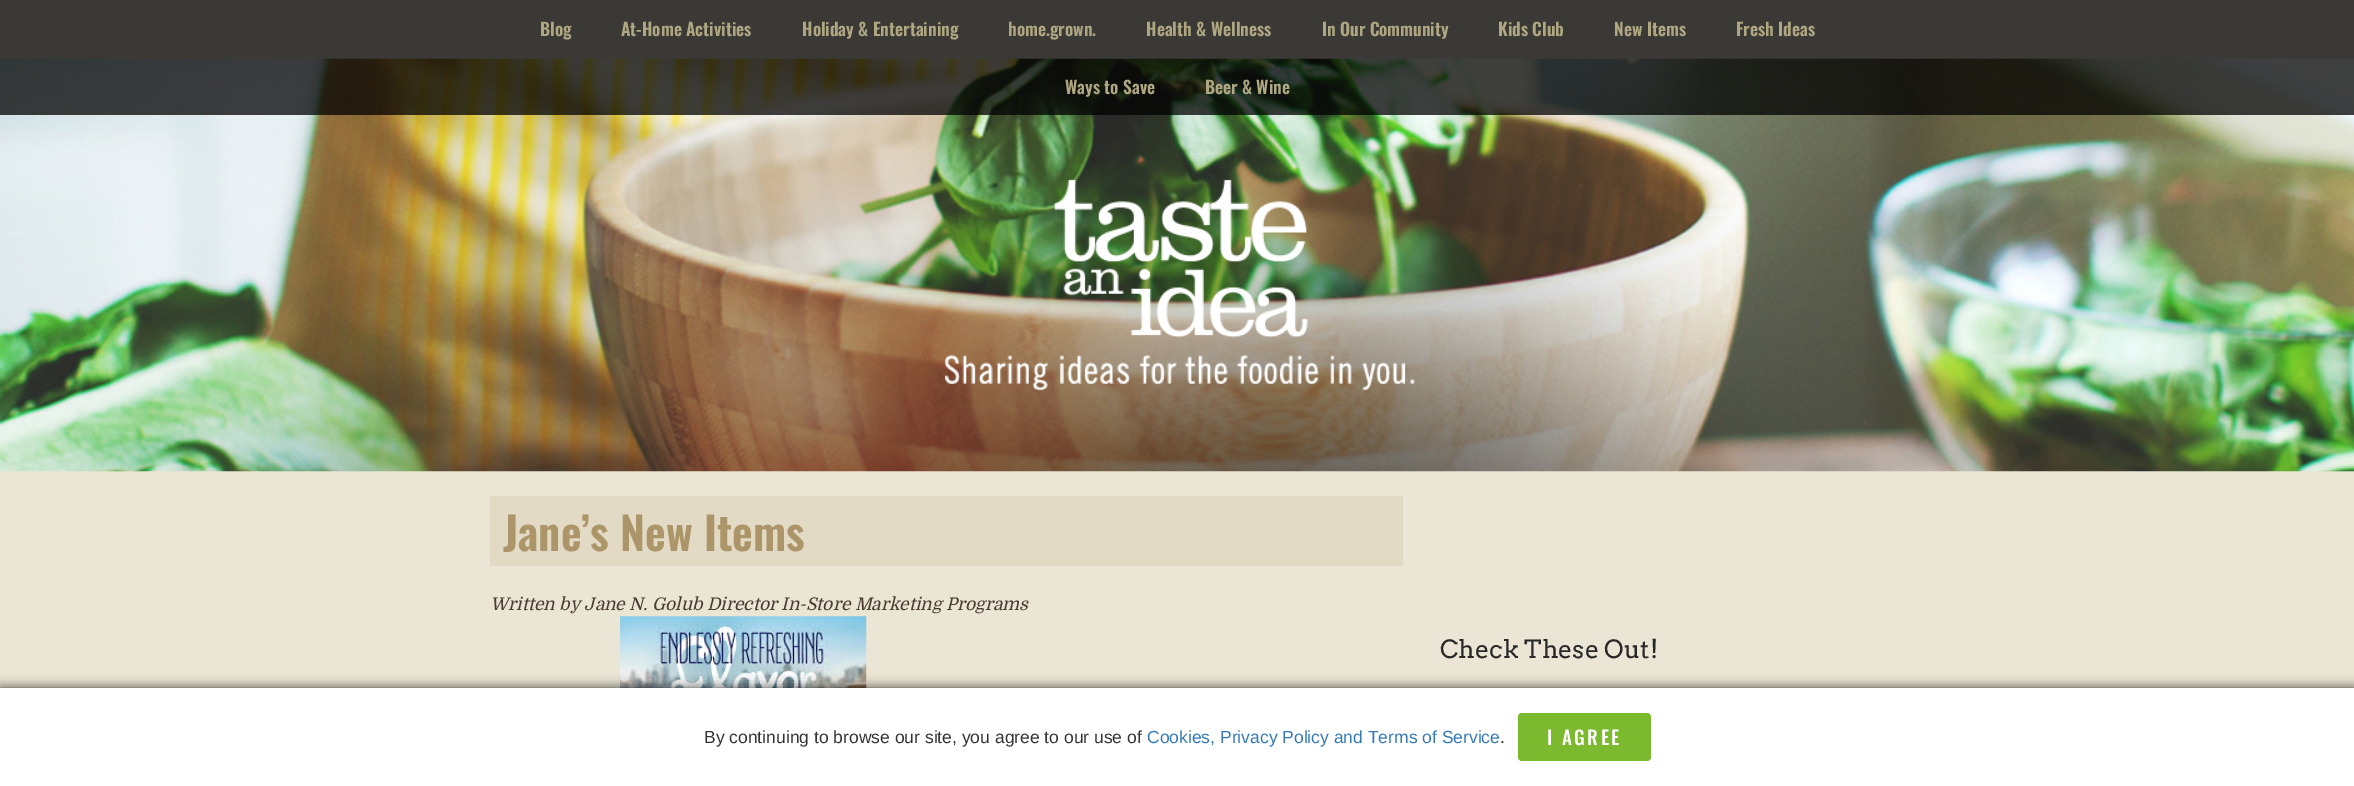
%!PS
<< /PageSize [2354 786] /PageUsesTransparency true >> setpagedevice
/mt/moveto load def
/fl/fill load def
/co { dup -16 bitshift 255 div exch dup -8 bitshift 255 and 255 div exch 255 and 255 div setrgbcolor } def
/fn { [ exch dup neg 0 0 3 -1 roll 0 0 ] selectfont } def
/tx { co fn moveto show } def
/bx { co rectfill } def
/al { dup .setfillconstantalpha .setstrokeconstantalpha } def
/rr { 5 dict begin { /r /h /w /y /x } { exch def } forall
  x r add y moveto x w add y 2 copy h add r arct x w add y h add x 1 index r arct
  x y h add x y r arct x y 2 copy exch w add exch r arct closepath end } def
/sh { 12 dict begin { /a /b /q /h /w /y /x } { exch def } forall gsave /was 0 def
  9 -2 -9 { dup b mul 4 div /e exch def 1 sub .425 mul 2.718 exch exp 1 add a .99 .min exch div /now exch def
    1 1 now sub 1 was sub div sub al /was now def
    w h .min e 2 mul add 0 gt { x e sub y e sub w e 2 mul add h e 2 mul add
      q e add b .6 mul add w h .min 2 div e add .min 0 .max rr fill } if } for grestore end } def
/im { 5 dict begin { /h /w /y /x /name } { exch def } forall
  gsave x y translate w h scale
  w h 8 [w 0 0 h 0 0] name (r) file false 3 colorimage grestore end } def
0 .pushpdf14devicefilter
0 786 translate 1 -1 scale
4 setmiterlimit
0 0 2354 786 16#EBE5D5 bx
(media/1.raw) 0 58 2354 414 im
0.75 al
0 0 2354 115 16#000000 bx
1 al
(media/2.raw) 944 179 472 212 im
490 496 913 70 16#E2DAC4 bx
(media/3.raw) 620 616 247 72 im
16#000000 co
0 688 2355 98 0 6 .75 sh
0 688 2354 98 16#FFFFFF bx
16#7BBA2F co
1518 713 133 48 4 rr fl
(Blog) 540 36 /Oswald-SemiBold 17.5 16#AFA782 tx
(At-Home Activities) 621 36 /Oswald-SemiBold 17.5 16#AFA782 tx
(Holiday & Entertaining) 802 36 /Oswald-SemiBold 17.5 16#AFA782 tx
(home.grown.) 1008 36 /Oswald-SemiBold 17.5 16#AFA782 tx
(Health & Wellness) 1146 36 /Oswald-SemiBold 17.5 16#AFA782 tx
(In Our Community) 1322 36 /Oswald-SemiBold 17.5 16#AFA782 tx
(Kids Club) 1498 36 /Oswald-SemiBold 17.5 16#AFA782 tx
(New Items) 1614 36 /Oswald-SemiBold 17.5 16#AFA782 tx
(Fresh Ideas) 1736 36 /Oswald-SemiBold 17.5 16#AFA782 tx
(Ways to Save) 1065 94 /Oswald-SemiBold 17.5 16#AFA782 tx
(Beer & Wine) 1205 94 /Oswald-SemiBold 17.5 16#AFA782 tx
(Jane’s New Items) 503 551 /Oswald-SemiBold 45 16#AC9669 tx
(Written by Jane N. Golub Director In-Store Marketing Programs) 490 610 /Domine-Italic 17.5 16#4A3C31 tx
(Check These Out!) 1440 658 /Arvo-Regular 25 16#282828 tx
(By continuing to browse our site, you agree to our use of) 704 743 /LiberationSans-Regular 17.5 16#333333 tx
(Cookies, Privacy Policy and Terms of Service) 1147 743 /LiberationSans-Regular 17.5 16#337AB7 tx
(.) 1500 743 /LiberationSans-Regular 17.5 16#333333 tx
/Oswald-Medium 19 fn
16#FFFFFF co
1547 745 mt 2.5 0 (I AGREE) ashow
.poppdf14devicefilter showpage
